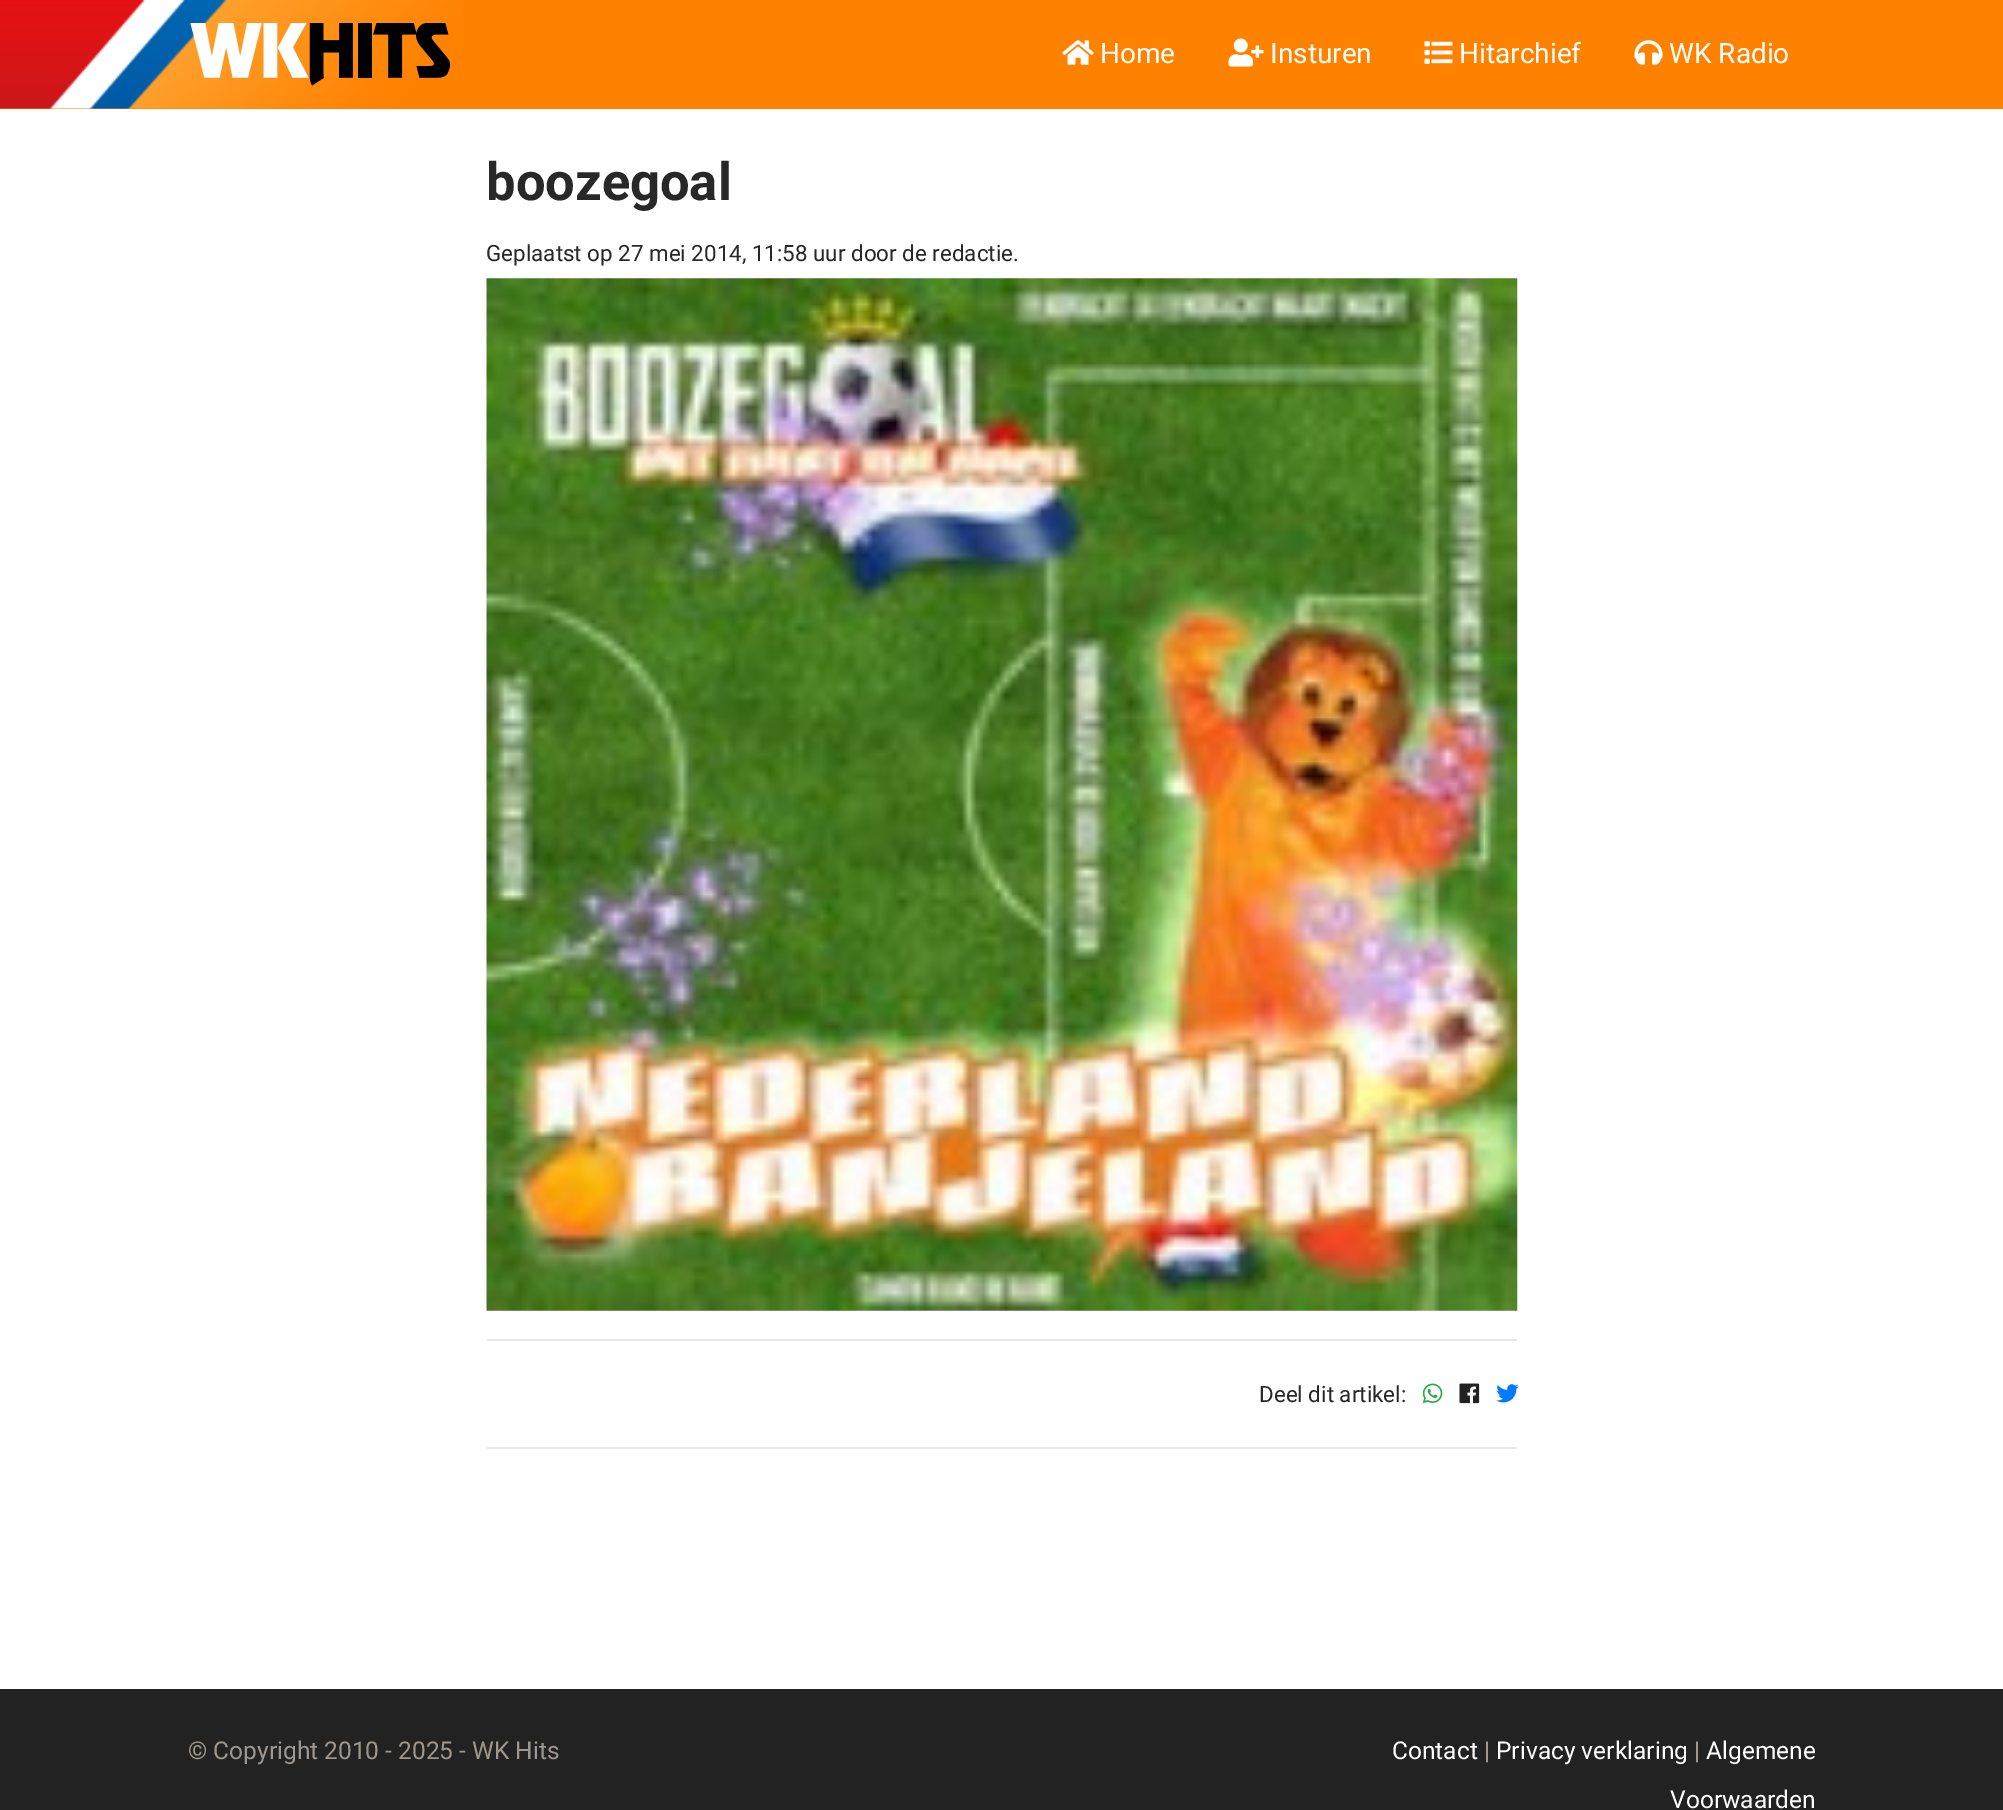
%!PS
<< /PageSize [2003 1810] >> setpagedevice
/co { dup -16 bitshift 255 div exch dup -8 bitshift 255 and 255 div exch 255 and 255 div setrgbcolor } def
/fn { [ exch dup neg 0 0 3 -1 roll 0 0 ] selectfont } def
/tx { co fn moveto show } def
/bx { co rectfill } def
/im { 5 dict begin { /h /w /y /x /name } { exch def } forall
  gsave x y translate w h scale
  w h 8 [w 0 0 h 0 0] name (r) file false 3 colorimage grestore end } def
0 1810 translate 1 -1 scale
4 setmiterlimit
0 0 2003 1810 16#FFFFFF bx
0 0 2003 109 16#FF8100 bx
(media/1.raw) 0 0 463 109 im
(media/2.raw) 190 23 261 63 im
(media/3.raw) 1062 40 32 25 im
(media/4.raw) 1228 38 36 29 im
(media/5.raw) 1424 41 29 23 im
(media/6.raw) 1634 40 29 25 im
(media/7.raw) 486 278 1032 1033 im
487 1339 1030 2 16#E6E6E6 bx
(media/8.raw) 1422 1383 21 21 im
(media/9.raw) 1459 1383 21 21 im
(media/10.raw) 1496 1384 23 19 im
487 1447 1030 2 16#E6E6E6 bx
0 1689 2003 121 16#222222 bx
(Home) 1100 63 /Roboto-Regular 28 16#FFFFFF tx
(Insturen) 1270 63 /Roboto-Regular 28 16#FFFFFF tx
(Hitarchief) 1459 63 /Roboto-Regular 28 16#FFFFFF tx
(WK Radio) 1669 63 /Roboto-Regular 28 16#FFFFFF tx
(boozegoal) 486 200 /Roboto-Bold 52.5 16#282828 tx
(Geplaatst op 27 mei 2014, 11:58 uur door de redactie.) 486 261 /Roboto-Regular 22.4 16#282828 tx
(Deel dit artikel:) 1259 1402 /Roboto-Regular 22.4 16#282828 tx
(© Copyright 2010 - 2025 - WK Hits) 188 1759 /Roboto-Regular 24.5 16#9F968D tx
(Contact) 1392 1759 /Roboto-Regular 24.5 16#FFFFFF tx
(|) 1484 1759 /Roboto-Regular 24.5 16#9F968D tx
(Privacy verklaring) 1496 1759 /Roboto-Regular 24.5 16#FFFFFF tx
(|) 1694 1759 /Roboto-Regular 24.5 16#9F968D tx
(Algemene) 1706 1759 /Roboto-Regular 24.5 16#FFFFFF tx
(Voorwaarden) 1670 1808 /Roboto-Regular 24.5 16#FFFFFF tx
showpage
